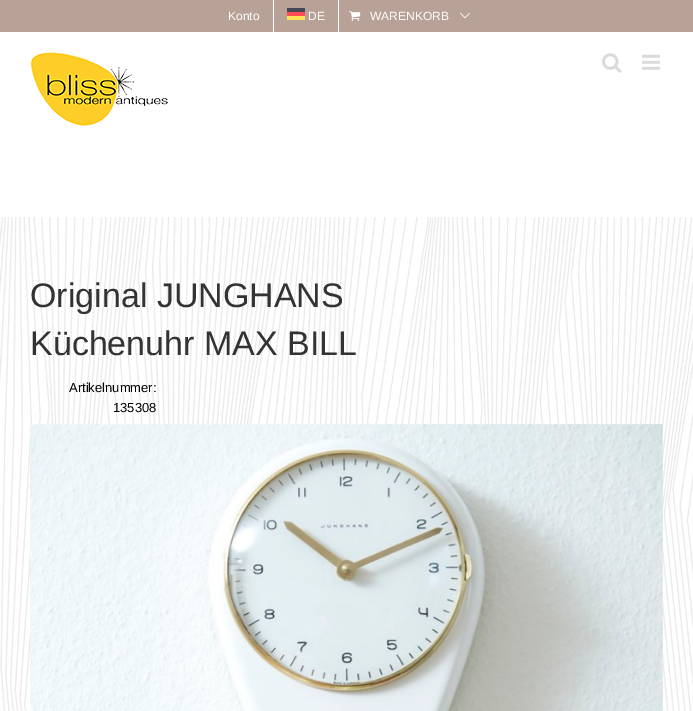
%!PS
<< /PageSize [693 711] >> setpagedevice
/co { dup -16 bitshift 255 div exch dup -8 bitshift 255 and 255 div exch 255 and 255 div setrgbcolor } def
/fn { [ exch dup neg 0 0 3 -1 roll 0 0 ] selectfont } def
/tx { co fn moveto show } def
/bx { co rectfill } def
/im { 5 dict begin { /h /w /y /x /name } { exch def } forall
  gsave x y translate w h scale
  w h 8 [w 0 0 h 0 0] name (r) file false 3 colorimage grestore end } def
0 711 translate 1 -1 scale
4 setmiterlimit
0 0 693 711 16#FFFFFF bx
0 0 693 32 16#B8A196 bx
273 0 1 32 16#FFFFFF bx
287 8 18 4 16#464655 bx
287 12 18 4 16#FF4B55 bx
287 16 18 4 16#FFE15A bx
338 0 1 32 16#FFFFFF bx
(media/1.raw) 349 11 12 10 im
(media/2.raw) 459 12 12 7 im
(media/3.raw) 30 52 138 74 im
(media/4.raw) 602 53 20 20 im
(media/5.raw) 642 54 18 16 im
(media/6.raw) 0 217 693 494 im
(media/7.raw) 30 424 633 287 im
(Konto) 228 20 /LiberationSans-Regular 12 16#FFFFFF tx
(DE) 308 20 /LiberationSans-Regular 12 16#FFFFFF tx
(WARENKORB) 370 20 /LiberationSans-Regular 12 16#FFFFFF tx
(Original JUNGHANS) 30 307 /LiberationSans-Regular 34 16#333333 tx
(Küchenuhr MAX BILL) 30 355 /LiberationSans-Regular 34 16#333333 tx
(Artikelnummer:) 69 392 /LiberationSans-Regular 13 16#000000 tx
(135308) 113 412 /LiberationSans-Regular 13 16#000000 tx
showpage
